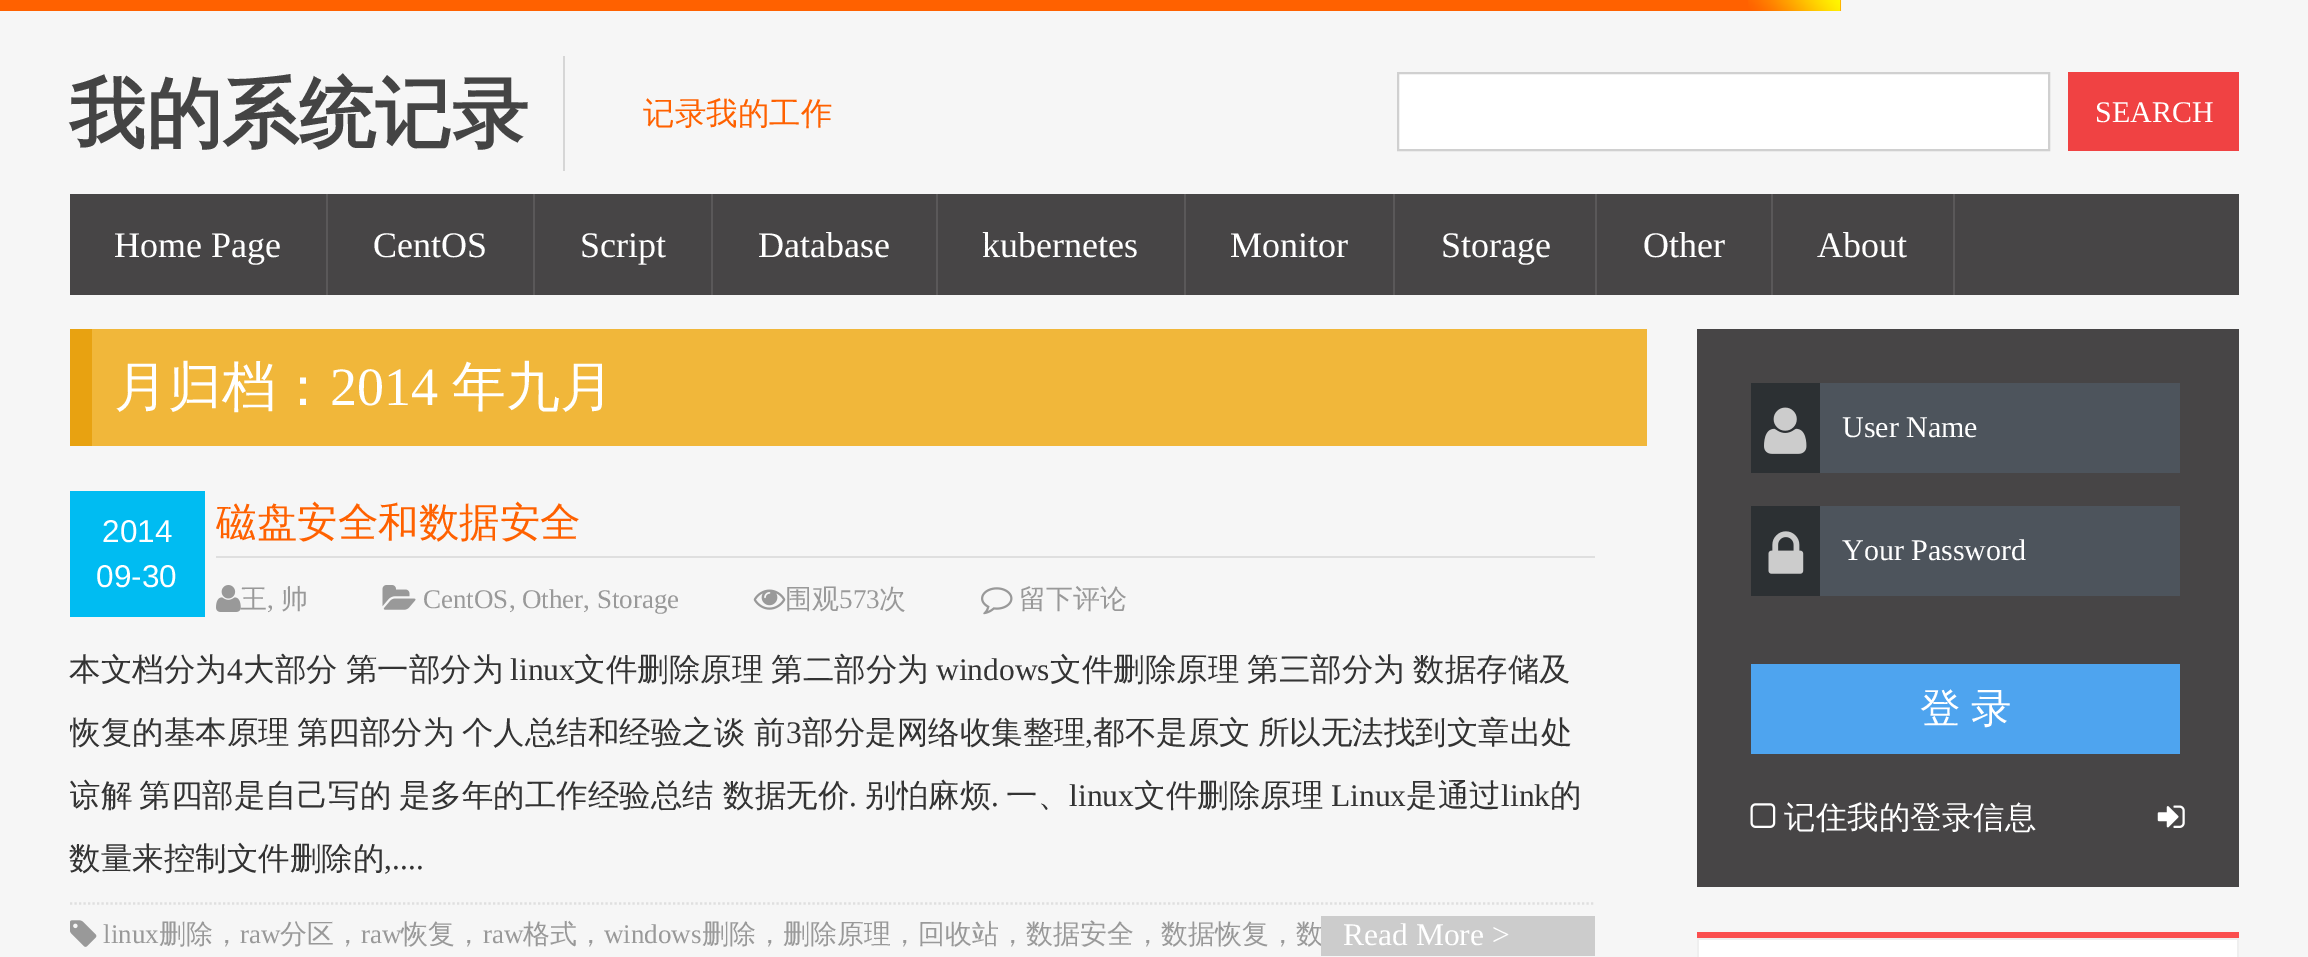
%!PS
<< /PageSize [2308 957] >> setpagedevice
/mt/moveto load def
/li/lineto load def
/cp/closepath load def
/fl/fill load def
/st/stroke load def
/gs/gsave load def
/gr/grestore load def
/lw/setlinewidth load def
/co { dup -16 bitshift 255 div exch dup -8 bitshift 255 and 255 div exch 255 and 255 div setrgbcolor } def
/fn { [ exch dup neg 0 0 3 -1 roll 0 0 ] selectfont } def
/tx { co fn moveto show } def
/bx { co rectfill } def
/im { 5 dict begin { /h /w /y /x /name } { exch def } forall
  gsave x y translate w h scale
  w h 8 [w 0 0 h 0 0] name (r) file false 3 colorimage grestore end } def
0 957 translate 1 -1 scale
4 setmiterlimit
0 0 2308 957 16#F6F6F6 bx
0 0 1841 11 16#FF6100 bx
(media/1.raw) 1748 0 94 11 im
563 56 2 115 16#D6D6D6 bx
16#FFFFFF co
1398 73 mt 2049 73 li 2049 150 li 1398 150 li cp gs fl gr
16#D0D0D0 co
2 lw
st
2068 72 171 79 16#F04243 bx
70 194 2169 101 16#474546 bx
326 194 2 101 16#5A5859 bx
533 194 2 101 16#5A5859 bx
711 194 2 101 16#5A5859 bx
936 194 2 101 16#5A5859 bx
1184 194 2 101 16#5A5859 bx
1393 194 2 101 16#5A5859 bx
1595 194 2 101 16#5A5859 bx
1771 194 2 101 16#5A5859 bx
1953 194 2 101 16#5A5859 bx
92 329 1555 117 16#F1B73A bx
70 329 22 117 16#E8A211 bx
70 491 135 126 16#00BCF2 bx
216 556 1379 2 16#DFDFDF bx
(media/2.raw) 216 585 25 27 im
(media/3.raw) 382 585 34 25 im
(media/4.raw) 753 589 33 21 im
(media/5.raw) 981 587 32 28 im
2.2 lw
[2.25 2.25] 0 setdash
70 903.5 mt 1595 903.5 li st
(media/6.raw) 70 920 27 27 im
1697 329 542 558 16#474546 bx
1751 383 69 90 16#2C3033 bx
(media/7.raw) 1764 407 43 47 im
1820 383 360 90 16#4D545C bx
1751 506 69 90 16#2C3033 bx
(media/8.raw) 1768 531 36 43 im
1820 506 360 90 16#4D545C bx
1751 664 429 90 16#4EA4EF bx
(media/9.raw) 1750 803 26 25 im
(media/10.raw) 2157 805 28 23 im
1697 932 542 6 16#FB4F4F bx
1699 940 538 17 16#FFFFFF bx
1697 938 542 2 16#EFEFEF bx
2237 938 2 19 16#EFEFEF bx
1697 938 2 19 16#EFEFEF bx
(我的系统记录) 69 140 /WenQuanYiZenHei-Bold 76.5 16#444444 tx
(记录我的工作) 643 124 /WenQuanYiZenHei-Medium 31.5 16#FF6100 tx
(SEARCH) 2095 122 /LiberationSerif-Regular 30 16#FFFFFF tx
(Home Page) 114 257 /LiberationSerif-Regular 36 16#FFFFFF tx
(CentOS) 373 257 /LiberationSerif-Regular 36 16#FFFFFF tx
(Script) 580 257 /LiberationSerif-Regular 36 16#FFFFFF tx
(Database) 758 257 /LiberationSerif-Regular 36 16#FFFFFF tx
(kubernetes) 982 257 /LiberationSerif-Regular 36 16#FFFFFF tx
(Monitor) 1230 257 /LiberationSerif-Regular 36 16#FFFFFF tx
(Storage) 1441 257 /LiberationSerif-Regular 36 16#FFFFFF tx
(Other) 1643 257 /LiberationSerif-Regular 36 16#FFFFFF tx
(About) 1817 257 /LiberationSerif-Regular 36 16#FFFFFF tx
(月归档：) 114 405 /WenQuanYiZenHei-Medium 54 16#FFFFFF tx
(2014) 330 405 /LiberationSerif-Regular 54 16#FFFFFF tx
(年九月) 452 405 /WenQuanYiZenHei-Medium 54 16#FFFFFF tx
(2014) 102 542 /LiberationSans-Regular 31.5 16#FFFFFF tx
(09-30) 96 587 /LiberationSans-Regular 31.5 16#FFFFFF tx
(磁盘安全和数据安全) 216 536 /WenQuanYiZenHei-Medium 40.5 16#FF6100 tx
(王) 240 608 /WenQuanYiZenHei-Medium 27 16#999999 tx
(,) 267 608 /LiberationSerif-Regular 27 16#999999 tx
(帅) 281 608 /WenQuanYiZenHei-Medium 27 16#999999 tx
(CentOS, Other, Storage) 423 608 /LiberationSerif-Regular 27 16#999999 tx
(围观) 785 608 /WenQuanYiZenHei-Medium 27 16#999999 tx
(573) 839 608 /LiberationSerif-Regular 27 16#999999 tx
(次) 879 608 /WenQuanYiZenHei-Medium 27 16#999999 tx
(留下评论) 1019 608 /WenQuanYiZenHei-Medium 27 16#999999 tx
(本文档分为) 69 680 /WenQuanYiZenHei-Medium 31.5 16#333333 tx
(4) 227 680 /LiberationSerif-Regular 31.5 16#333333 tx
/WenQuanYiZenHei-Medium 31.5 fn
243 680 mt -1 0 32 (大部分 第一部分为) widthshow
(linux) 510 680 /LiberationSerif-Regular 31.5 16#333333 tx
/WenQuanYiZenHei-Medium 31.5 fn
574 680 mt -1 0 32 (文件删除原理 第二部分为) widthshow
(windows) 936 680 /LiberationSerif-Regular 31.5 16#333333 tx
/WenQuanYiZenHei-Medium 31.5 fn
1050 680 mt -1 0 32 (文件删除原理 第三部分为 数据存储及) widthshow
gs
70 639 1525 263 rectclip
69 743 mt -2 0 32 (恢复的基本原理 第四部分为 个人总结和经验之谈) widthshow
gr
(前) 754 743 /WenQuanYiZenHei-Medium 31.5 16#333333 tx
(3) 786 743 /LiberationSerif-Regular 31.5 16#333333 tx
(部分是网络收集整理) 802 743 /WenQuanYiZenHei-Medium 31.5 16#333333 tx
(,) 1085 743 /LiberationSerif-Regular 31.5 16#333333 tx
/WenQuanYiZenHei-Medium 31.5 fn
1093 743 mt -2 0 32 (都不是原文 所以无法找到文章出处) widthshow
gs
70 639 1525 263 rectclip
69 806 mt -2 0 32 (谅解 第四部是自己写的 是多年的工作经验总结) widthshow
gr
(数据无价) 723 806 /WenQuanYiZenHei-Medium 31.5 16#333333 tx
(.) 849 806 /LiberationSerif-Regular 31.5 16#333333 tx
(别怕麻烦) 865 806 /WenQuanYiZenHei-Medium 31.5 16#333333 tx
(.) 991 806 /LiberationSerif-Regular 31.5 16#333333 tx
(一、) 1006 806 /WenQuanYiZenHei-Medium 31.5 16#333333 tx
(linux) 1069 806 /LiberationSerif-Regular 31.5 16#333333 tx
(文件删除原理) 1134 806 /WenQuanYiZenHei-Medium 31.5 16#333333 tx
(Linux) 1331 806 /LiberationSerif-Regular 31.5 16#333333 tx
(是通过) 1406 806 /WenQuanYiZenHei-Medium 31.5 16#333333 tx
(link) 1501 806 /LiberationSerif-Regular 31.5 16#333333 tx
(的) 1550 806 /WenQuanYiZenHei-Medium 31.5 16#333333 tx
(数量来控制文件删除的) 69 869 /WenQuanYiZenHei-Medium 31.5 16#333333 tx
(,....) 384 869 /LiberationSerif-Regular 31.5 16#333333 tx
(linux) 103 943 /LiberationSerif-Regular 27 16#999999 tx
(删除，) 159 943 /WenQuanYiZenHei-Medium 27 16#999999 tx
(raw) 240 943 /LiberationSerif-Regular 27 16#999999 tx
(分区，) 280 943 /WenQuanYiZenHei-Medium 27 16#999999 tx
(raw) 361 943 /LiberationSerif-Regular 27 16#999999 tx
(恢复，) 401 943 /WenQuanYiZenHei-Medium 27 16#999999 tx
(raw) 483 943 /LiberationSerif-Regular 27 16#999999 tx
(格式，) 523 943 /WenQuanYiZenHei-Medium 27 16#999999 tx
(windows) 604 943 /LiberationSerif-Regular 27 16#999999 tx
(删除，删除原理，回收站，数据安全，数据恢复，数) 702 943 /WenQuanYiZenHei-Medium 27 16#999999 tx
1321 916 274 40 16#CCCCCC bx
(Read More >) 1343 945 /LiberationSerif-Regular 31.5 16#FFFFFF tx
(User Name) 1842 437 /LiberationSerif-Regular 30 16#FFFFFF tx
(Your Password) 1842 560 /LiberationSerif-Regular 30 16#FFFFFF tx
/WenQuanYiZenHei-Medium 40.5 fn
1920 722 mt -2 0 32 (登 录) widthshow
(记住我的登录信息) 1784 828 /WenQuanYiZenHei-Medium 31.5 16#FFFFFF tx
showpage
